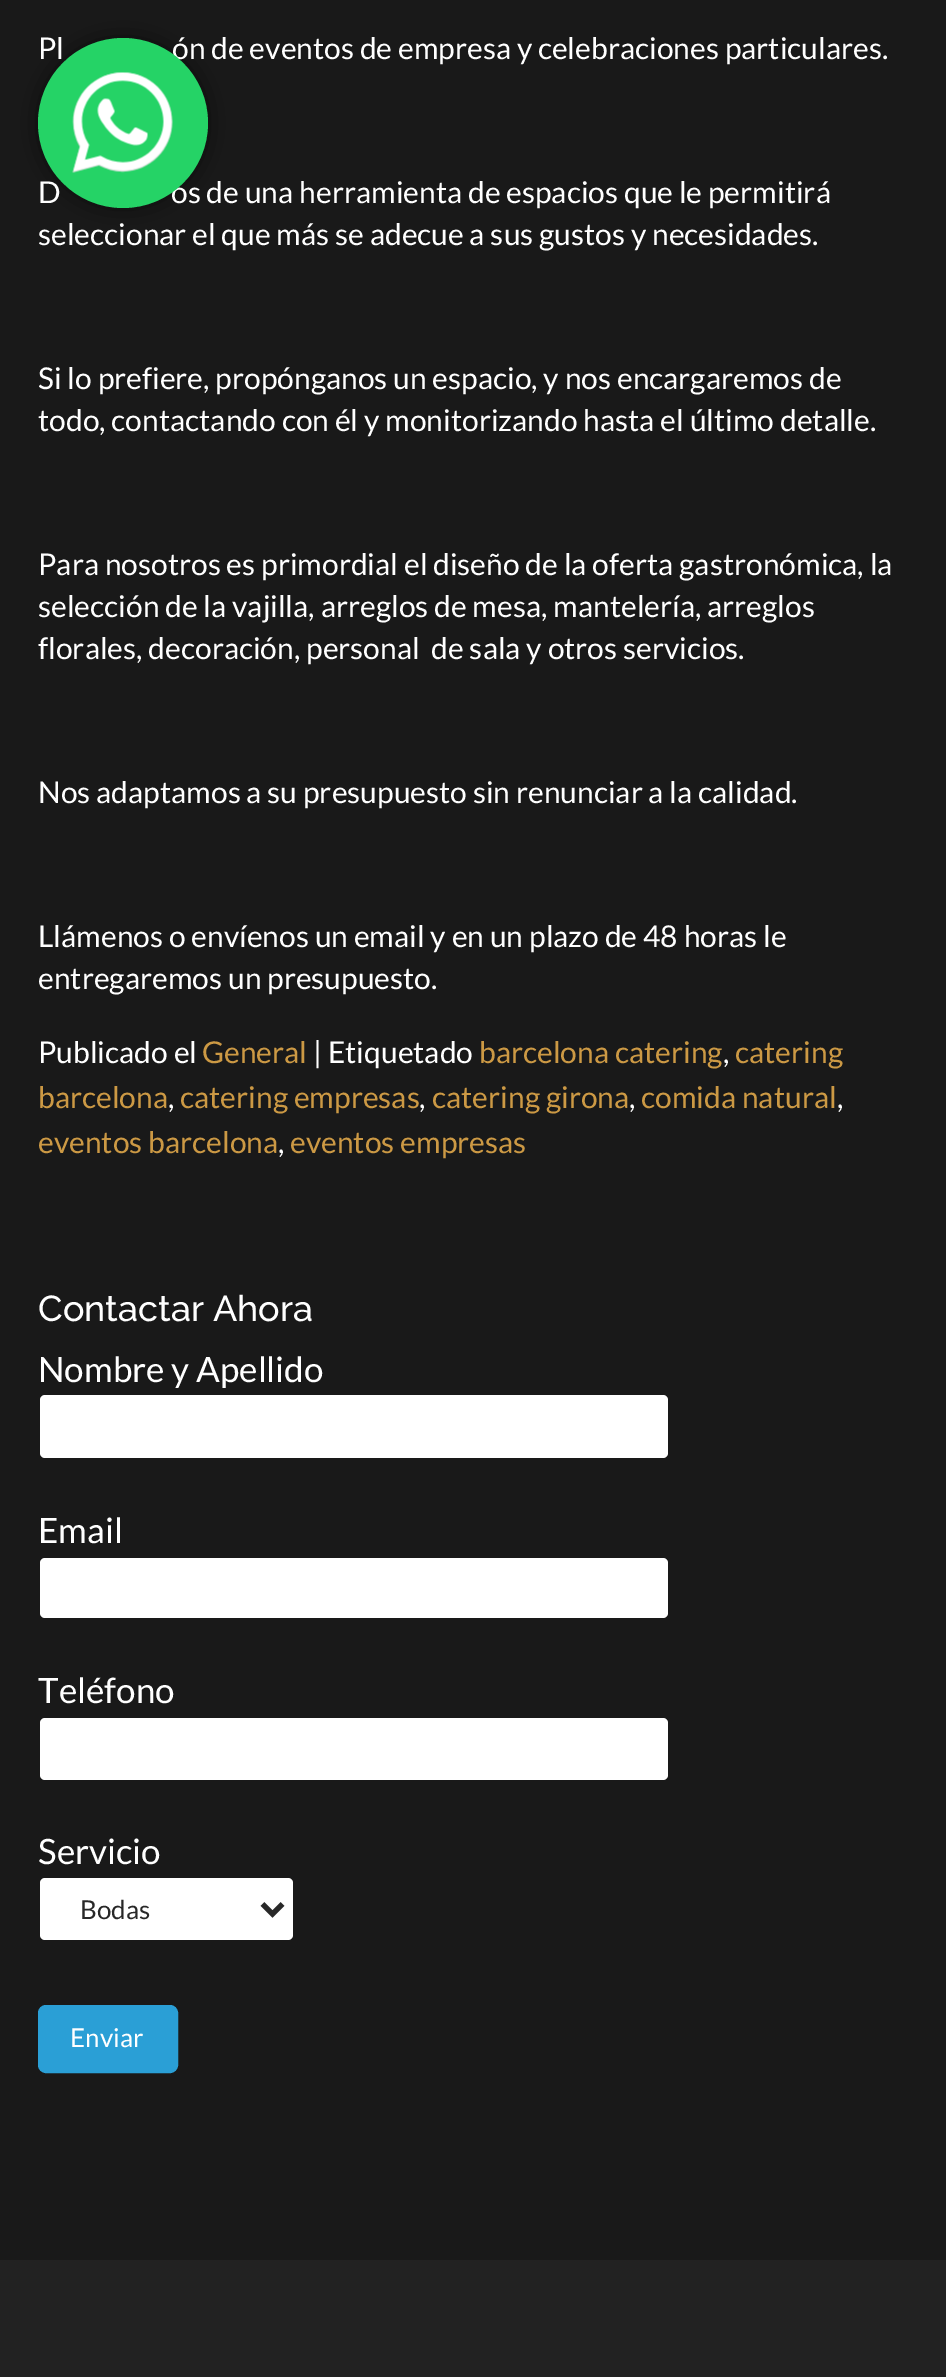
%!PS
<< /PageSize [946 2377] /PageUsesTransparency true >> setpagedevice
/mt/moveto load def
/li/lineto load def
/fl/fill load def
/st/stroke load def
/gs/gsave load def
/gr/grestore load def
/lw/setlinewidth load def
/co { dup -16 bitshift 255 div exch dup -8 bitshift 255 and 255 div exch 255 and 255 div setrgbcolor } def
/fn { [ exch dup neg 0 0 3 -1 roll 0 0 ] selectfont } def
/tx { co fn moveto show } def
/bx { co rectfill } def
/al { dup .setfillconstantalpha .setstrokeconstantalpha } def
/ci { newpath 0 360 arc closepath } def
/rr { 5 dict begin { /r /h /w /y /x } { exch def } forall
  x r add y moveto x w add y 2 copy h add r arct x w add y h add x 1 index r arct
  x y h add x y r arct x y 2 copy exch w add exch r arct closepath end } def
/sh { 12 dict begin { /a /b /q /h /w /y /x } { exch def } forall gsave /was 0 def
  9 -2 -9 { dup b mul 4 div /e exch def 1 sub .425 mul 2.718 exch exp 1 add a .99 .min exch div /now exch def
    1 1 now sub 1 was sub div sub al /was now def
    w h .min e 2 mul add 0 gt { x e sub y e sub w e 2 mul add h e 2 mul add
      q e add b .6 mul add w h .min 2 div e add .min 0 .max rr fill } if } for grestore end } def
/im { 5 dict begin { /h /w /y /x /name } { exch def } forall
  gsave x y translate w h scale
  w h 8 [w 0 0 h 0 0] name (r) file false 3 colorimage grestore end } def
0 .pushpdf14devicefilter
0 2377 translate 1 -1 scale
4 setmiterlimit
0 0 946 2377 16#191919 bx
16#000000 co
38 38 170 170 85 14 .5 sh
16#FFFFFF co
40 1395 628 63 5 rr fl
40 1558 628 60 5 rr fl
40 1718 628 62 5 rr fl
40 1878 253 62 5 rr fl
16#282828 co
5 lw
262.5 1904 mt 272.5 1914 li 282.5 1904 li st
16#2A9FD6 co
39.5 2006.5 137 65 6.5 rr gs fl gr
3 lw
st
0 2260 946 117 16#222222 bx
(Pl) 38 59 /Lato-Regular 30 16#FFFFFF tx
(ón de eventos de empresa y celebraciones particulares.) 172 59 /Lato-Regular 30 16#FFFFFF tx
(D) 38 203 /Lato-Regular 30 16#FFFFFF tx
(os de una herramienta de espacios que le permitirá) 171 203 /Lato-Regular 30 16#FFFFFF tx
16#25D366 co
123 123 85 ci fl
(media/1.raw) 72 72 101 101 im
(seleccionar el que más se adecue a sus gustos y necesidades.) 38 245 /Lato-Regular 30 16#FFFFFF tx
(Si lo prefiere, propónganos un espacio, y nos encargaremos de) 38 389 /Lato-Regular 30 16#FFFFFF tx
(todo, contactando con él y monitorizando hasta el último detalle.) 38 431 /Lato-Regular 30 16#FFFFFF tx
(Para nosotros es primordial el diseño de la oferta gastronómica, la) 38 575 /Lato-Regular 30 16#FFFFFF tx
(selección de la vajilla, arreglos de mesa, mantelería, arreglos) 38 617 /Lato-Regular 30 16#FFFFFF tx
(florales, decoración, personal  de sala y otros servicios.) 38 659 /Lato-Regular 30 16#FFFFFF tx
(Nos adaptamos a su presupuesto sin renunciar a la calidad.) 38 803 /Lato-Regular 30 16#FFFFFF tx
(Llámenos o envíenos un email y en un plazo de 48 horas le) 38 947 /Lato-Regular 30 16#FFFFFF tx
(entregaremos un presupuesto.) 38 989 /Lato-Regular 30 16#FFFFFF tx
(Publicado el) 38 1063 /Lato-Regular 30 16#FFFFFF tx
(General) 202 1063 /Lato-Regular 30 16#CC9944 tx
(| Etiquetado) 313 1063 /Lato-Regular 30 16#FFFFFF tx
(barcelona catering) 479 1063 /Lato-Regular 30 16#CC9944 tx
(,) 723 1063 /Lato-Regular 30 16#FFFFFF tx
(catering) 735 1063 /Lato-Regular 30 16#CC9944 tx
(barcelona) 38 1108 /Lato-Regular 30 16#CC9944 tx
(,) 168 1108 /Lato-Regular 30 16#FFFFFF tx
(catering empresas) 180 1108 /Lato-Regular 30 16#CC9944 tx
(,) 419 1108 /Lato-Regular 30 16#FFFFFF tx
(catering girona) 432 1108 /Lato-Regular 30 16#CC9944 tx
(,) 629 1108 /Lato-Regular 30 16#FFFFFF tx
(comida natural) 641 1108 /Lato-Regular 30 16#CC9944 tx
(,) 837 1108 /Lato-Regular 30 16#FFFFFF tx
(eventos barcelona) 38 1153 /Lato-Regular 30 16#CC9944 tx
(,) 278 1153 /Lato-Regular 30 16#FFFFFF tx
(eventos empresas) 290 1153 /Lato-Regular 30 16#CC9944 tx
(Contactar Ahora) 38 1321 /Raleway-Medium 36 16#FFFFFF tx
(Nombre y Apellido) 38 1382 /Lato-Regular 35 16#FFFFFF tx
(Email) 38 1543 /Lato-Regular 35 16#FFFFFF tx
(Teléfono) 38 1703 /Lato-Regular 35 16#FFFFFF tx
(Servicio) 38 1864 /Lato-Regular 35 16#FFFFFF tx
(Bodas) 80 1919 /Lato-Regular 26 16#282828 tx
(Enviar) 70 2047 /Lato-Regular 26 16#FFFFFF tx
.poppdf14devicefilter showpage
